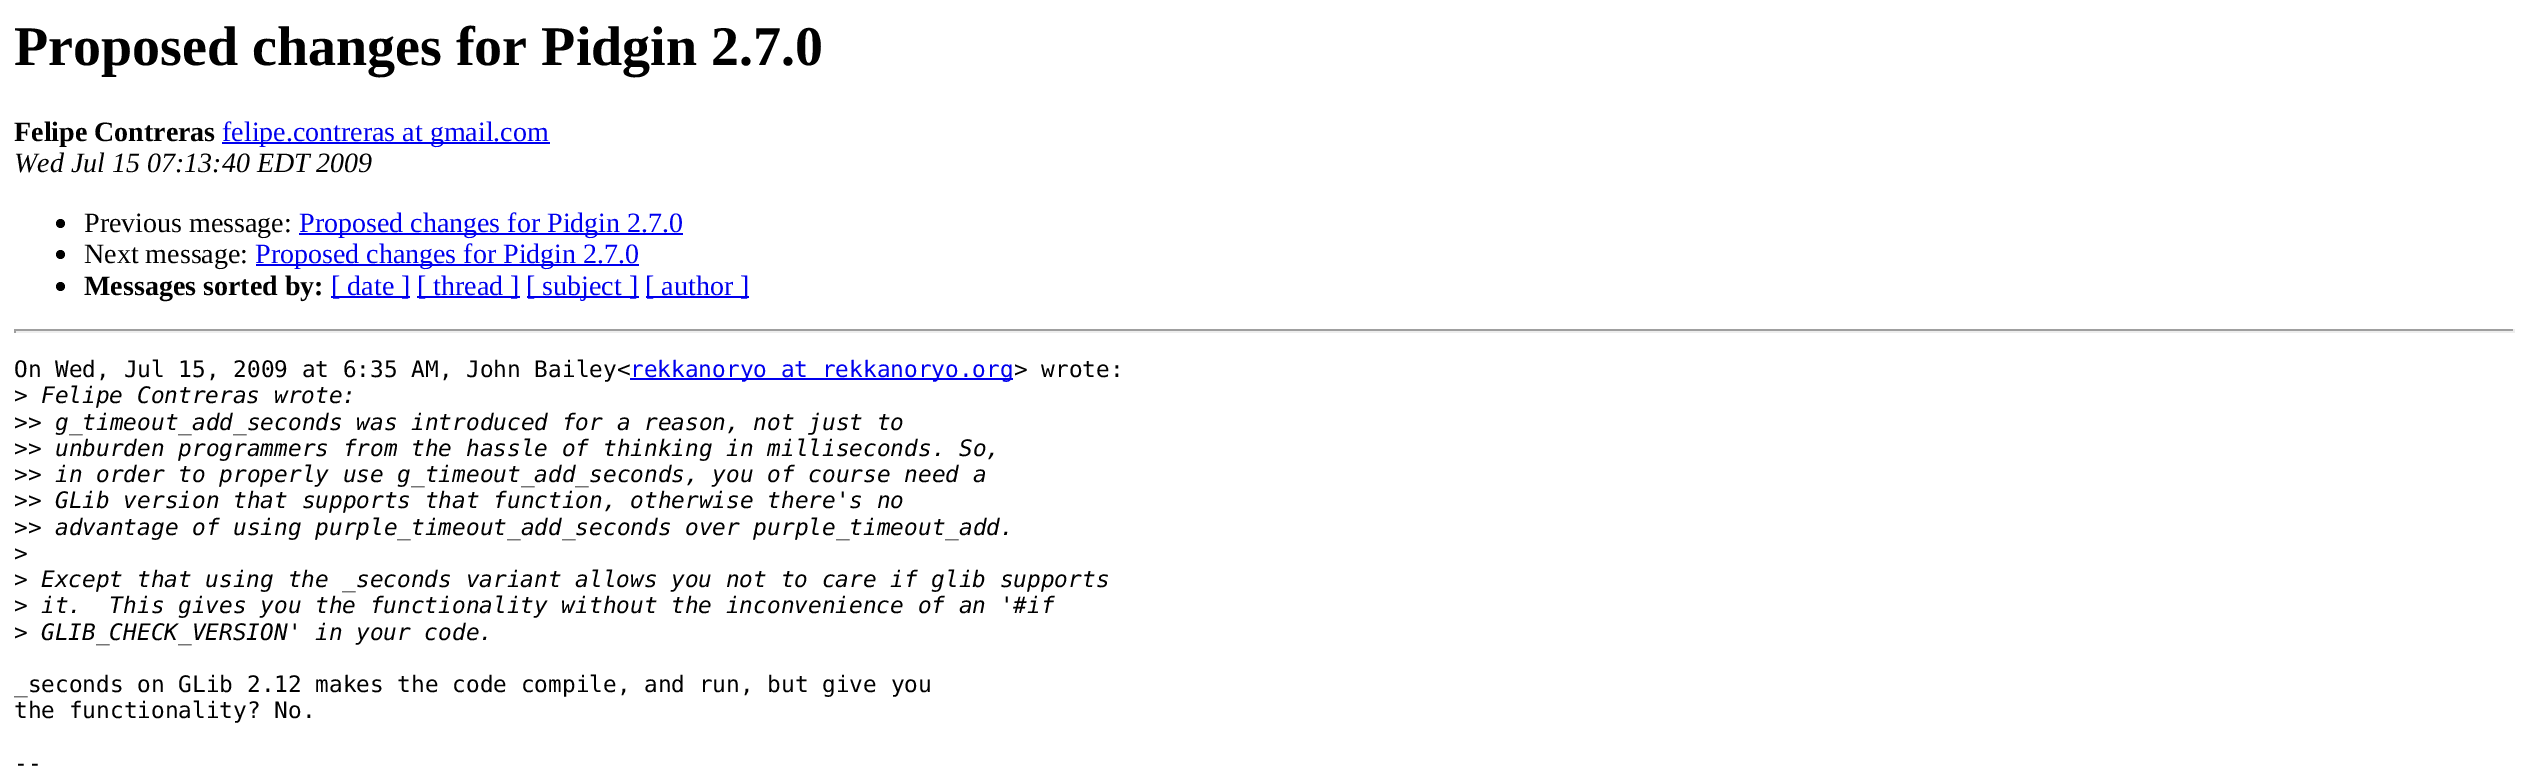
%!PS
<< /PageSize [2528 773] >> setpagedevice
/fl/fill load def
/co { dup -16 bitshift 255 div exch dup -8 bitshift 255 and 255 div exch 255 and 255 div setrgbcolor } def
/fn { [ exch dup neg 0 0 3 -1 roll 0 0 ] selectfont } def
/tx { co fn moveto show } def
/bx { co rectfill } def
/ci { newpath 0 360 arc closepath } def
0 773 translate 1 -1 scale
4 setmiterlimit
0 0 2528 773 16#FFFFFF bx
222 142 328 2 16#0000EE bx
16#000000 co
60.5 223.5 4.5 ci fl
299 233 384 2 16#0000EE bx
16#000000 co
60.5 254.5 4.5 ci fl
256 264 383 2 16#0000EE bx
16#000000 co
60.5 286.5 4.5 ci fl
331 296 79 2 16#0000EE bx
417 296 103 2 16#0000EE bx
527 296 112 2 16#0000EE bx
646 296 103 2 16#0000EE bx
14 329 2501 2 16#9F9F9F bx
2513 329 2 4 16#EEEEEE bx
14 331 2501 2 16#EEEEEE bx
14 329 2 4 16#9F9F9F bx
630 378 383 2 16#0000EE bx
(Proposed changes for Pidgin 2.7.0) 14 65 /LiberationSerif-Bold 56 16#000000 tx
(Felipe Contreras) 14 141 /LiberationSerif-Bold 28 16#000000 tx
(felipe.contreras at gmail.com) 222 141 /LiberationSerif-Regular 28 16#0000EE tx
(Wed Jul 15 07:13:40 EDT 2009) 14 172 /LiberationSerif-Italic 28 16#000000 tx
(Previous message:) 84 232 /LiberationSerif-Regular 28 16#000000 tx
(Proposed changes for Pidgin 2.7.0) 299 232 /LiberationSerif-Regular 28 16#0000EE tx
(Next message:) 84 263 /LiberationSerif-Regular 28 16#000000 tx
(Proposed changes for Pidgin 2.7.0) 255 263 /LiberationSerif-Regular 28 16#0000EE tx
(Messages sorted by:) 84 295 /LiberationSerif-Bold 28 16#000000 tx
([ date ]) 331 295 /LiberationSerif-Regular 28 16#0000EE tx
([ thread ]) 417 295 /LiberationSerif-Regular 28 16#0000EE tx
([ subject ]) 526 295 /LiberationSerif-Regular 28 16#0000EE tx
([ author ]) 645 295 /LiberationSerif-Regular 28 16#0000EE tx
(On Wed, Jul 15, 2009 at 6:35 AM, John Bailey<) 14 377 /DejaVuSansMono-Regular 22.75 16#000000 tx
(rekkanoryo at rekkanoryo.org) 630 377 /DejaVuSansMono-Regular 22.75 16#0000EE tx
(> wrote:) 1014 377 /DejaVuSansMono-Regular 22.75 16#000000 tx
(>) 14 403 /DejaVuSansMono-Regular 22.75 16#000000 tx
(Felipe Contreras wrote:) 41 403 /DejaVuSansMono-Italic 22.75 16#000000 tx
(>>) 14 430 /DejaVuSansMono-Regular 22.75 16#000000 tx
(g_timeout_add_seconds was introduced for a reason, not just to) 55 430 /DejaVuSansMono-Italic 22.75 16#000000 tx
(>>) 14 456 /DejaVuSansMono-Regular 22.75 16#000000 tx
(unburden programmers from the hassle of thinking in milliseconds. So,) 55 456 /DejaVuSansMono-Italic 22.75 16#000000 tx
(>>) 14 482 /DejaVuSansMono-Regular 22.75 16#000000 tx
(in order to properly use g_timeout_add_seconds, you of course need a) 55 482 /DejaVuSansMono-Italic 22.75 16#000000 tx
(>>) 14 508 /DejaVuSansMono-Regular 22.75 16#000000 tx
(GLib version that supports that function, otherwise there's no) 55 508 /DejaVuSansMono-Italic 22.75 16#000000 tx
(>>) 14 535 /DejaVuSansMono-Regular 22.75 16#000000 tx
(advantage of using purple_timeout_add_seconds over purple_timeout_add.) 55 535 /DejaVuSansMono-Italic 22.75 16#000000 tx
(>) 14 561 /DejaVuSansMono-Regular 22.75 16#000000 tx
(>) 14 587 /DejaVuSansMono-Regular 22.75 16#000000 tx
(Except that using the _seconds variant allows you not to care if glib supports) 41 587 /DejaVuSansMono-Italic 22.75 16#000000 tx
(>) 14 613 /DejaVuSansMono-Regular 22.75 16#000000 tx
(it.  This gives you the functionality without the inconvenience of an '#if) 41 613 /DejaVuSansMono-Italic 22.75 16#000000 tx
(>) 14 640 /DejaVuSansMono-Regular 22.75 16#000000 tx
(GLIB_CHECK_VERSION' in your code.) 41 640 /DejaVuSansMono-Italic 22.75 16#000000 tx
(_seconds on GLib 2.12 makes the code compile, and run, but give you) 14 692 /DejaVuSansMono-Regular 22.75 16#000000 tx
(the functionality? No.) 14 718 /DejaVuSansMono-Regular 22.75 16#000000 tx
(--) 14 771 /DejaVuSansMono-Regular 22.75 16#000000 tx
showpage
